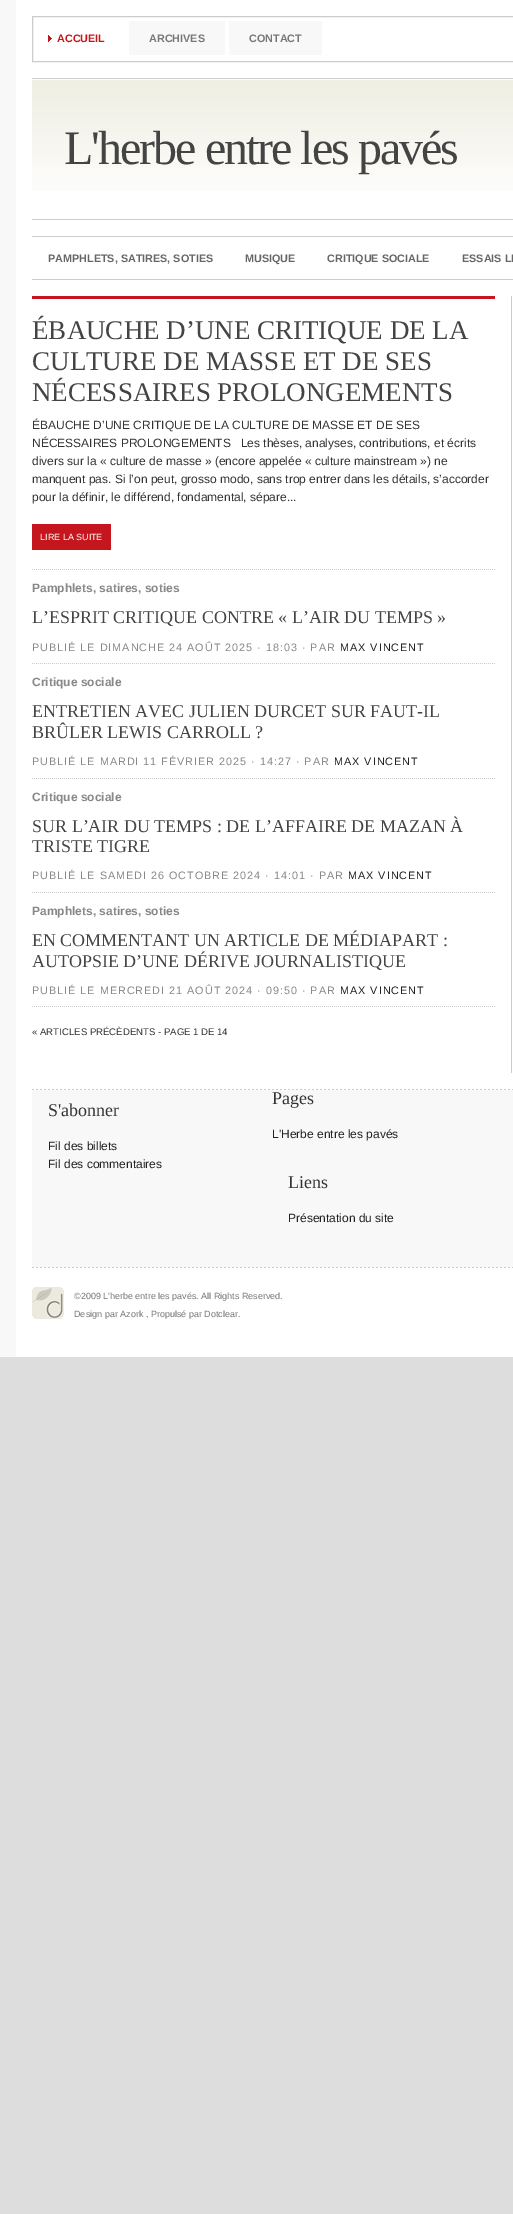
%!PS
<< /PageSize [513 2214] >> setpagedevice
/mt/moveto load def
/co { dup -16 bitshift 255 div exch dup -8 bitshift 255 and 255 div exch 255 and 255 div setrgbcolor } def
/fn { [ exch dup neg 0 0 3 -1 roll 0 0 ] selectfont } def
/tx { co fn moveto show } def
/bx { co rectfill } def
/im { 5 dict begin { /h /w /y /x /name } { exch def } forall
  gsave x y translate w h scale
  w h 8 [w 0 0 h 0 0] name (r) file false 3 colorimage grestore end } def
0 2214 translate 1 -1 scale
4 setmiterlimit
0 0 513 2214 16#DDDDDD bx
16 0 497 1357 16#FFFFFF bx
0 0 16 1357 16#F8F8F8 bx
16#CCCCCC co
32.5 16.5 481 45 rectstroke
(media/1.raw) 48 35 4 7 im
129 21 96 34 16#F8F8F8 bx
229 21 93 34 16#F8F8F8 bx
(media/2.raw) 32 80 481 111 im
32 78 481 1 16#CCCCCC bx
32 219 481 1 16#CCCCCC bx
32 236 481 1 16#CCCCCC bx
32 279 481 1 16#CCCCCC bx
511 296 1 777 16#CCCCCC bx
(media/3.raw) 32 569 463 1 im
32 296 463 3 16#C4161C bx
32 524 79 26 16#C4161C bx
(media/3.raw) 32 663 463 1 im
(media/3.raw) 32 778 463 1 im
(media/3.raw) 32 892 463 1 im
(media/3.raw) 32 1006 463 1 im
32 1090 481 177 16#F8F8F8 bx
(media/4.raw) 32 1089 481 1 im
(media/4.raw) 32 1267 481 1 im
(media/5.raw) 32 1287 32 32 im
(ACCUEIL) 57 42 /LiberationSans-Bold 10.8 16#C4161C tx
(ARCHIVES) 149 42 /LiberationSans-Bold 10.8 16#777777 tx
(CONTACT) 249 42 /LiberationSans-Bold 10.8 16#777777 tx
/LiberationSerif-Regular 48 fn
16#444444 co
64 164 mt -2 0 (L'herbe entre les pavés) ashow
(PAMPHLETS, SATIRES, SOTIES) 48 262 /LiberationSans-Bold 10.8 16#666666 tx
(MUSIQUE) 245 262 /LiberationSans-Bold 10.8 16#666666 tx
(CRITIQUE SOCIALE) 327 262 /LiberationSans-Bold 10.8 16#666666 tx
(ESSAIS LI) 462 262 /LiberationSans-Bold 10.8 16#666666 tx
(ÉBAUCHE D’UNE CRITIQUE DE LA) 32 339 /LiberationSerif-Regular 27 16#444444 tx
(CULTURE DE MASSE ET DE SES) 32 370 /LiberationSerif-Regular 27 16#444444 tx
(NÉCESSAIRES PROLONGEMENTS) 32 401 /LiberationSerif-Regular 27 16#444444 tx
(ÉBAUCHE D’UNE CRITIQUE DE LA CULTURE DE MASSE ET DE SES) 32 429 /LiberationSans-Regular 12 16#333333 tx
(NÉCESSAIRES PROLONGEMENTS   Les thèses, analyses, contributions, et écrits) 32 447 /LiberationSans-Regular 12 16#333333 tx
(divers sur la « culture de masse » \(encore appelée « culture mainstream »\) ne) 32 465 /LiberationSans-Regular 12 16#333333 tx
(manquent pas. Si l’on peut, grosso modo, sans trop entrer dans les détails, s’accorder) 32 483 /LiberationSans-Regular 12 16#333333 tx
(pour la définir, le différend, fondamental, sépare...) 32 501 /LiberationSans-Regular 12 16#333333 tx
(LIRE LA SUITE) 40 540 /LiberationSans-Regular 9 16#FFFFFF tx
(Pamphlets, satires, soties) 32 592 /LiberationSans-Bold 12 16#888888 tx
(L’ESPRIT CRITIQUE CONTRE « L’AIR DU TEMPS ») 32 623 /LiberationSerif-Regular 18 16#444444 tx
/LiberationSans-Regular 10.8 fn
16#888888 co
32 651 mt 1 0 (PUBLIÉ LE DIMANCHE 24 AOÛT 2025 · 18:03 · PAR) ashow
16#222222 co
340 651 mt 1 0 (MAX VINCENT) ashow
(Critique sociale) 32 686 /LiberationSans-Bold 12 16#888888 tx
(ENTRETIEN AVEC JULIEN DURCET SUR FAUT-IL) 32 717 /LiberationSerif-Regular 18 16#444444 tx
(BRÛLER LEWIS CARROLL ?) 32 738 /LiberationSerif-Regular 18 16#444444 tx
/LiberationSans-Regular 10.8 fn
16#888888 co
32 765 mt 1 0 (PUBLIÉ LE MARDI 11 FÉVRIER 2025 · 14:27 · PAR) ashow
16#222222 co
334 765 mt 1 0 (MAX VINCENT) ashow
(Critique sociale) 32 801 /LiberationSans-Bold 12 16#888888 tx
(SUR L’AIR DU TEMPS : DE L’AFFAIRE DE MAZAN À) 32 832 /LiberationSerif-Regular 18 16#444444 tx
(TRISTE TIGRE) 32 852 /LiberationSerif-Regular 18 16#444444 tx
/LiberationSans-Regular 10.8 fn
16#888888 co
32 879 mt 1 0 (PUBLIÉ LE SAMEDI 26 OCTOBRE 2024 · 14:01 · PAR) ashow
16#222222 co
348 879 mt 1 0 (MAX VINCENT) ashow
(Pamphlets, satires, soties) 32 915 /LiberationSans-Bold 12 16#888888 tx
(EN COMMENTANT UN ARTICLE DE MÉDIAPART :) 32 946 /LiberationSerif-Regular 18 16#444444 tx
(AUTOPSIE D’UNE DÉRIVE JOURNALISTIQUE) 32 967 /LiberationSerif-Regular 18 16#444444 tx
/LiberationSans-Regular 10.8 fn
16#888888 co
32 994 mt 1 0 (PUBLIÉ LE MERCREDI 21 AOÛT 2024 · 09:50 · PAR) ashow
16#222222 co
340 994 mt 1 0 (MAX VINCENT) ashow
(« ARTICLES PRÉCÈDENTS - PAGE 1 DE 14) 32 1035 /LiberationSans-Regular 9.6 16#333333 tx
(Pages) 272 1104 /LiberationSerif-Regular 18 16#333333 tx
(S'abonner) 48 1116 /LiberationSerif-Regular 18 16#333333 tx
(Fil des billets) 48 1150 /LiberationSans-Regular 12 16#222222 tx
(Fil des commentaires) 48 1168 /LiberationSans-Regular 12 16#222222 tx
(L'Herbe entre les pavés) 272 1138 /LiberationSans-Regular 12 16#222222 tx
(Liens) 288 1188 /LiberationSerif-Regular 18 16#333333 tx
(Présentation du site) 288 1222 /LiberationSans-Regular 12 16#222222 tx
(©2009 L'herbe entre les pavés. All Rights Reserved.) 74 1299 /LiberationSans-Regular 9 16#777777 tx
(Design par Azork , Propulsé par Dotclear.) 74 1317 /LiberationSans-Regular 9 16#777777 tx
showpage
